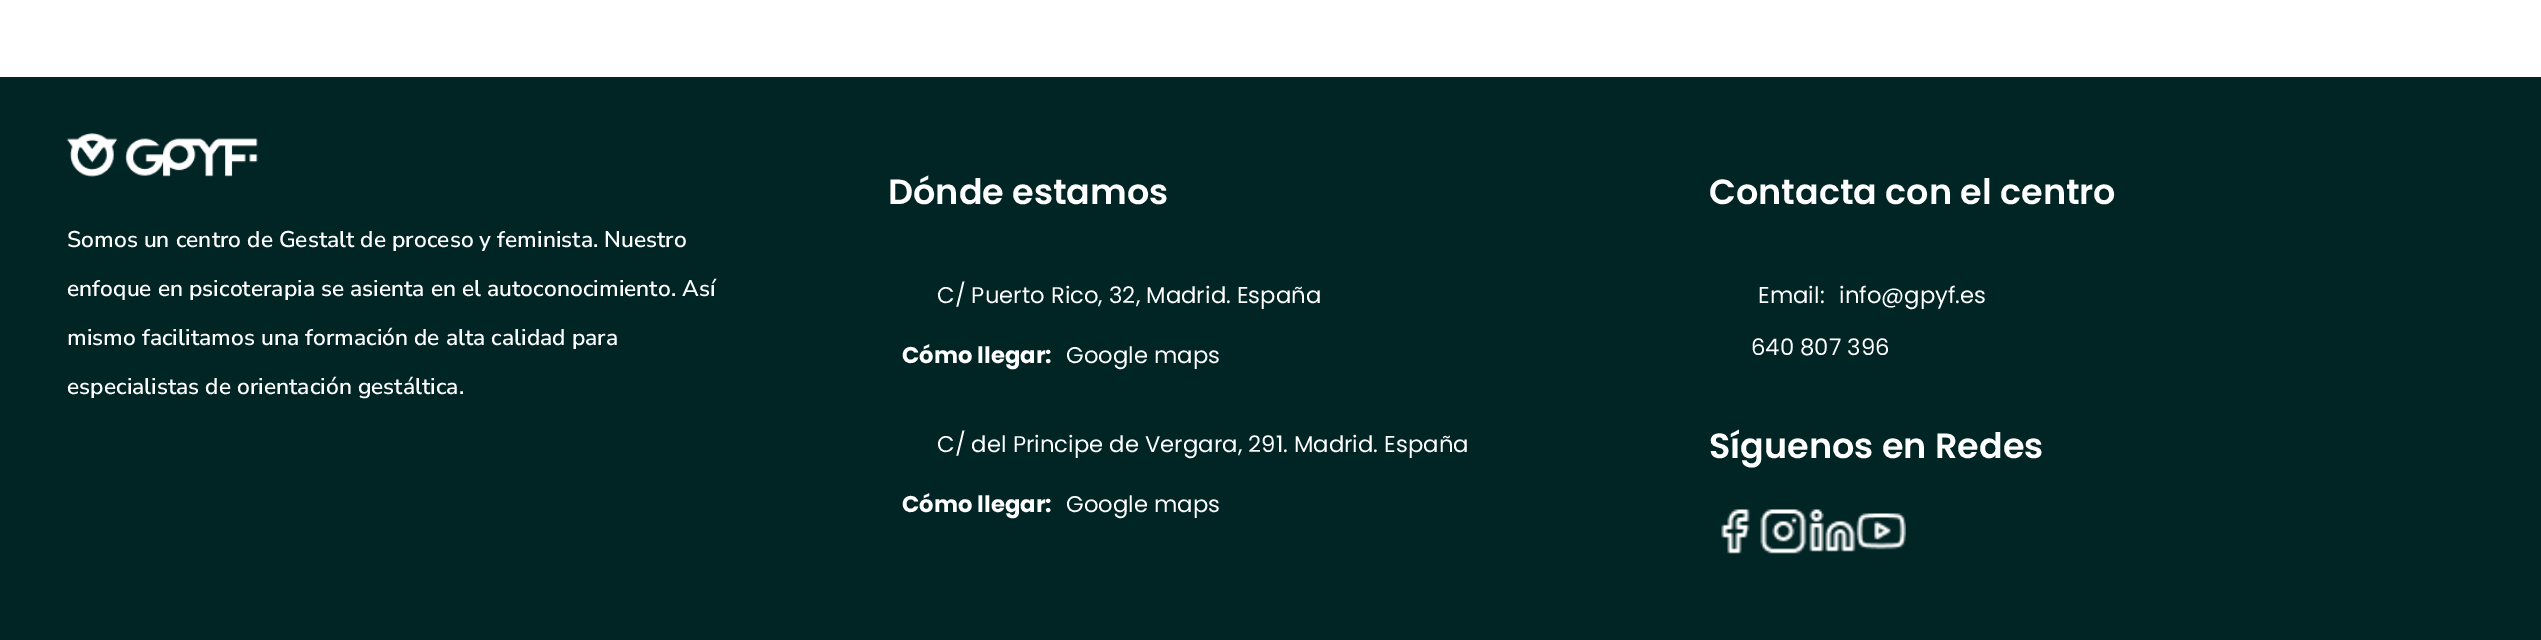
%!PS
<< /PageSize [2541 640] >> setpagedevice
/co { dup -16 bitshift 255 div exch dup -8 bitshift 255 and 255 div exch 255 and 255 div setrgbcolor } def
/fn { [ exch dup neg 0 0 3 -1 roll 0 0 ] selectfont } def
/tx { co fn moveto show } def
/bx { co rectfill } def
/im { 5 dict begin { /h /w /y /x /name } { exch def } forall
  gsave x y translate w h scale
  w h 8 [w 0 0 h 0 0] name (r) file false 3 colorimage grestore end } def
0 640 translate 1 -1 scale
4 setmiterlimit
0 0 2541 640 16#FFFFFF bx
0 77 2541 563 16#012425 bx
(media/1.raw) 66 133 192 44 im
(media/2.raw) 1721 509 29 45 im
(media/3.raw) 1760 509 47 45 im
(media/4.raw) 1809 509 47 43 im
(media/5.raw) 1856 513 50 37 im
(Somos un centro de Gestalt de proceso y feminista. Nuestro) 67 247 /NunitoSans-SemiBold 22.75 16#FFFFFF tx
(enfoque en psicoterapia se asienta en el autoconocimiento. Así) 67 296 /NunitoSans-SemiBold 22.75 16#FFFFFF tx
(mismo facilitamos una formación de alta calidad para) 67 345 /NunitoSans-SemiBold 22.75 16#FFFFFF tx
(especialistas de orientación gestáltica.) 67 394 /NunitoSans-SemiBold 22.75 16#FFFFFF tx
(Dónde estamos) 888 204 /Poppins-SemiBold 35 16#FFFFFF tx
(C/ Puerto Rico, 32, Madrid. España) 937 303 /Poppins-Regular 22.75 16#FFFFFF tx
(Cómo llegar:) 902 363 /Poppins-Bold 22.75 16#FFFFFF tx
(Google maps) 1066 363 /Poppins-Regular 22.75 16#FFFFFF tx
(C/ del Principe de Vergara, 291. Madrid. España) 937 452 /Poppins-Regular 22.75 16#FFFFFF tx
(Cómo llegar:) 902 512 /Poppins-Bold 22.75 16#FFFFFF tx
(Google maps) 1066 512 /Poppins-Regular 22.75 16#FFFFFF tx
(Contacta con el centro) 1709 204 /Poppins-SemiBold 35 16#FFFFFF tx
(Email:) 1758 303 /Poppins-Regular 22.75 16#FFFFFF tx
(info@gpyf.es) 1839 303 /Poppins-Regular 22.75 16#FFFFFF tx
(640 807 396) 1751 355 /Poppins-Regular 22.75 16#FFFFFF tx
(Síguenos en Redes) 1709 458 /Poppins-SemiBold 35 16#FFFFFF tx
showpage
